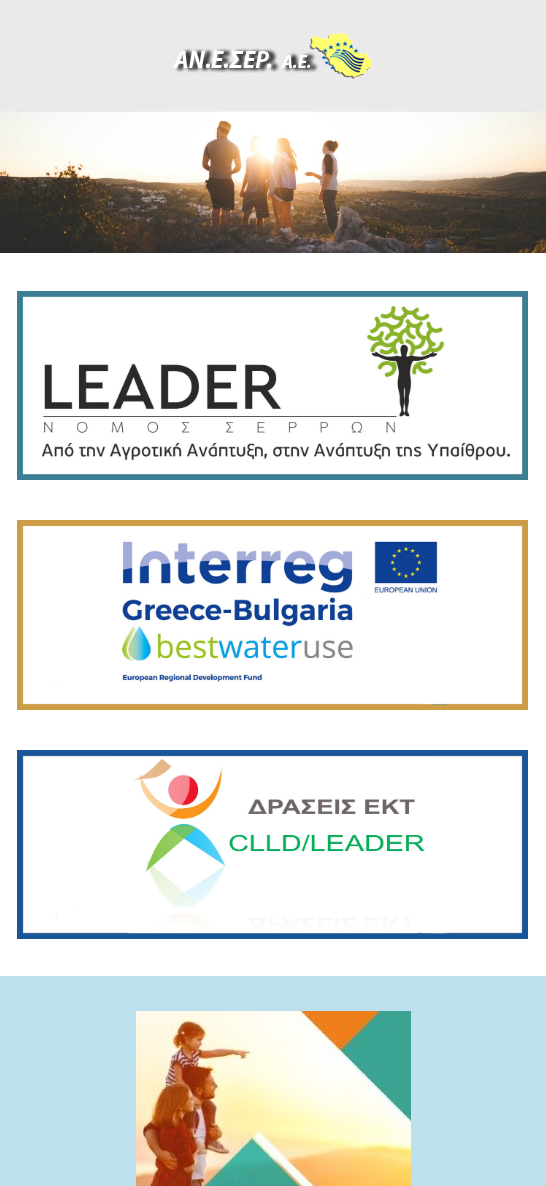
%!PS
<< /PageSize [546 1186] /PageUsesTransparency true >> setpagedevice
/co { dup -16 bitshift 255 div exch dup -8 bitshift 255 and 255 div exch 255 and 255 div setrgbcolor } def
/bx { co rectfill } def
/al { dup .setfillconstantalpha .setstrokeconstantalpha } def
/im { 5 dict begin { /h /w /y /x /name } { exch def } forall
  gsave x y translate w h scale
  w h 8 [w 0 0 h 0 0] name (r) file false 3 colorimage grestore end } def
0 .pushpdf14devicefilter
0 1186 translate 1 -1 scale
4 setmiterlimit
0 0 546 1186 16#FFFFFF bx
0 0 546 111 16#EAEAEA bx
(media/1.raw) 173 33 199 46 im
(media/2.raw) 0 111 546 142 im
0.1 al
15 111 516 1 16#777777 bx
1 al
(media/3.raw) 17 291 511 189 im
(media/4.raw) 17 520 511 190 im
(media/5.raw) 17 750 511 189 im
0 976 546 210 16#BCE0EE bx
(media/6.raw) 136 1011 275 175 im
.poppdf14devicefilter showpage
